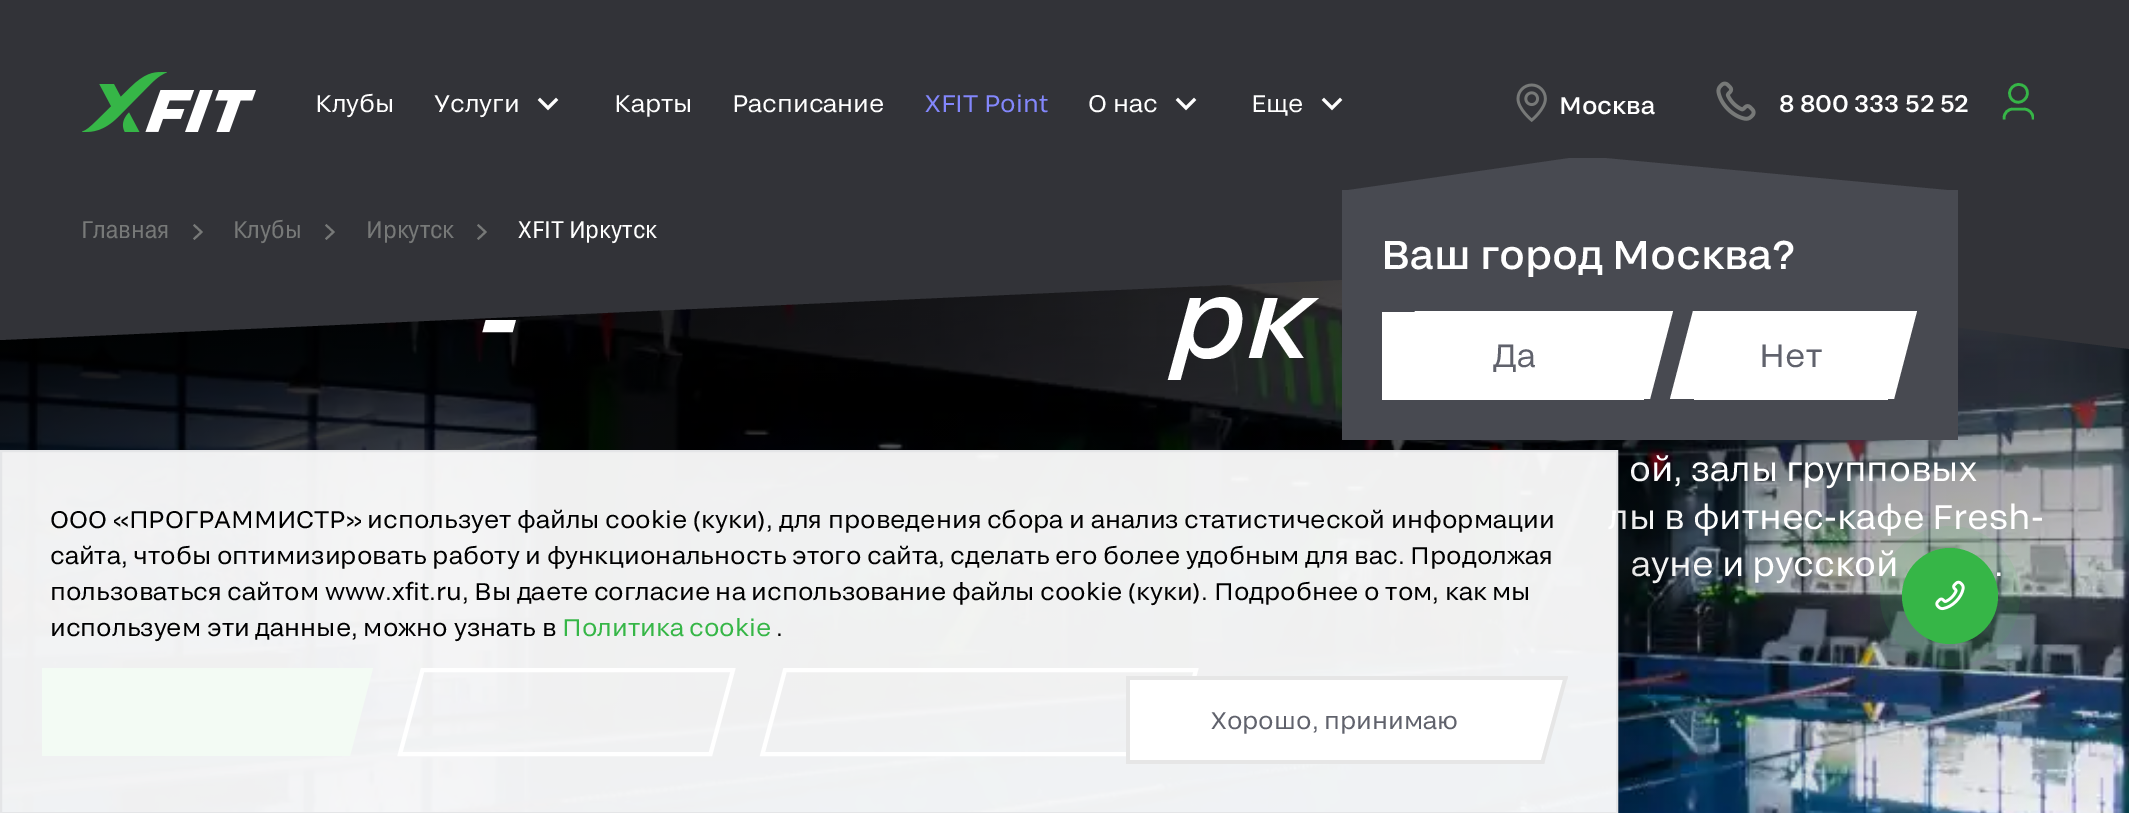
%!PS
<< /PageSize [2129 813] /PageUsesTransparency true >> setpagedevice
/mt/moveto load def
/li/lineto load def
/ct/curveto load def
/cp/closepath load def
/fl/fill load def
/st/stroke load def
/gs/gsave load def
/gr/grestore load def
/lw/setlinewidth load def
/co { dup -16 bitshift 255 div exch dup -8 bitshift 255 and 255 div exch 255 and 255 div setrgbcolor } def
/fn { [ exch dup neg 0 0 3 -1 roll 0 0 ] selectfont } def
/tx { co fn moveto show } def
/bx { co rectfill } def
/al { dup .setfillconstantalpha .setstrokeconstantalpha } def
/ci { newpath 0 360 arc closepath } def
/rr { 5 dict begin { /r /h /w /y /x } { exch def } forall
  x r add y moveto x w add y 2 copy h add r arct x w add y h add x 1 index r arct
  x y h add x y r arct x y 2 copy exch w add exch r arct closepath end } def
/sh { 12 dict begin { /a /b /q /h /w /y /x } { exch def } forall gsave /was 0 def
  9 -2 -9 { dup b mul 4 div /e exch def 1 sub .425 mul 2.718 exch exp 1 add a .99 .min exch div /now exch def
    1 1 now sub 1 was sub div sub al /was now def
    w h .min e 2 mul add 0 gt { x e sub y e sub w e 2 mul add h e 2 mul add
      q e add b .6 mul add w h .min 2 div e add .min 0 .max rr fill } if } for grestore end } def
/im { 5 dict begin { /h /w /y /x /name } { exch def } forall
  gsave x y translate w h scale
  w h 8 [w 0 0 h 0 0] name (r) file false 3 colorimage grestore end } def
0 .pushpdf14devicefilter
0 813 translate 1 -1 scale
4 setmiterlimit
0 0 2129 813 16#FFFFFF bx
0 0 2129 270 16#323338 bx
(media/1.raw) 82 72 174 60 im
16#FFFFFF co
3 lw
2 setlinecap
540 100 mt 548 108 li 556 100 li st
1178 100 mt 1186 108 li 1194 100 li st
1324 100 mt 1332 108 li 1340 100 li st
(media/2.raw) 1516 83 31 39 im
(media/3.raw) 1716 81 40 40 im
gs
2002 82 32 38 rectclip
16#36B647 co
2.6 lw
1 setlinejoin
2004 118 mt 2004 113 2008 109 2013 109 ct 2023.5 109 li 2029 109 2033 113 2033 118 ct st
gr
16#36B647 co
2.6 lw
1 setlinecap
1 setlinejoin
2025 87 mt 2033 95.5 2020 108 2012 99.5 ct 2004 91 2016.5 79 2025 87 ct cp st
16#777978 co
2 lw
2 setlinecap
0 setlinejoin
194.5 238.5 mt 201.5 232 li 194.5 225.5 li st
326.5 238.5 mt 333.5 232 li 326.5 225.5 li st
478.5 238.5 mt 485.5 232 li 478.5 225.5 li st
(media/4.raw) 0 279 2129 534 im
42 668 33 88 16#36B647 bx
75 668 mt 373 668 li 350 756 li 51 756 li cp fl
16#FFFFFF co
4 lw
0 setlinecap
422.5 670 mt 733 670 li 710.5 754 li 400 754 li cp st
785 670 mt 1196 670 li 1173.5 754 li 762.5 754 li cp st
0.05 al
1870 516 160 160 16#36B647 bx
0.1 al
1950 596 70 ci fl
1 al
(Клубы) 315 112 /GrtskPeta-Regular 24 16#FFFFFF tx
(Услуги) 434 112 /GrtskPeta-Regular 24 16#FFFFFF tx
(Карты) 614 112 /GrtskPeta-Regular 24 16#FFFFFF tx
(Расписание) 732 112 /GrtskPeta-Regular 24 16#FFFFFF tx
(XFIT Point) 925 112 /GrtskPeta-Regular 24 16#8387FC tx
(О нас) 1088 112 /GrtskPeta-Regular 24 16#FFFFFF tx
(Еще) 1251 112 /GrtskPeta-Regular 24 16#FFFFFF tx
(Москва) 1559 114 /GrtskPeta-Medium 24 16#FFFFFF tx
(8 800 333 52 52) 1779 112 /GrtskPeta-Medium 24 16#FFFFFF tx
(Главная) 81 238 /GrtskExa-Regular 24 16#777978 tx
(Клубы) 233 238 /GrtskExa-Regular 24 16#777978 tx
(Иркутск) 366 238 /GrtskExa-Regular 24 16#777978 tx
(XFIT Иркутск) 518 238 /GrtskExa-Regular 24 16#FFFFFF tx
(-) 478 358 /GrtskPeta-MediumItalic 110 16#FFFFFF tx
(рк) 1172 358 /GrtskPeta-MediumItalic 110 16#FFFFFF tx
16#323338 co
0 270 mt 0 340 li 1517 272 li 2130 349 li 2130 270 li cp fl
1342 190 616 250 16#484A51 bx
1382 312 262 88 16#FFFFFF bx
1415 311 mt 1673 311 li 1650 399 li 1392 399 li cp fl
1693 311 mt 1917 311 li 1894 399 li 1670 399 li cp fl
(Нет) 1759 367 /GrtskPeta-Regular 32 16#60626C tx
1694 399 194 1 16#FFFFFF bx
(Да) 1493 367 /GrtskPeta-Regular 32 16#60626C tx
16#484A51 co
1604 158 mt 1570 158 li 1342 191 li 1957 191 li cp fl
(Ваш город Москва?) 1381 269 /GrtskPeta-Medium 40 16#FFFFFF tx
(ой, залы групповых) 1629 481 /GrtskPeta-Regular 34 16#FFFFFF tx
(лы в фитнес-кафе Fresh-) 1608 529 /GrtskPeta-Regular 34 16#FFFFFF tx
(ауне и русской) 1631 576 /GrtskPeta-Regular 34 16#FFFFFF tx
(.) 1994 576 /GrtskPeta-Regular 34 16#FFFFFF tx
gs
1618 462 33 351 rectclip
16#000000 co
14 472 1618 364 0 28 .08 sh
gr
gs
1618 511 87 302 rectclip
16#000000 co
58 534 1618 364 0 51 .07 sh
gr
0.94 al
1 451 mt 1617 451 li 1617 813 li 1 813 li cp fl
1 al
16#E4E5E7 co
2 lw
1 451 mt 1617 451 li 1617 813 li 1 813 li cp st
(ООО «ПРОГРАММИСТР» использует файлы cookie \(куки\), для проведения сбора и анализ статистической информации) 50 528 /GrtskPeta-Regular 24 16#000000 tx
(сайта, чтобы оптимизировать работу и функциональность этого сайта, сделать его более удобным для вас. Продолжая) 50 564 /GrtskPeta-Regular 24 16#000000 tx
(пользоваться сайтом www.xfit.ru, Вы даете согласие на использование файлы cookie \(куки\). Подробнее о том, как мы) 50 600 /GrtskPeta-Regular 24 16#000000 tx
(используем эти данные, можно узнать в) 50 636 /GrtskPeta-Regular 24 16#000000 tx
(Политика cookie) 562 636 /GrtskPeta-Regular 24 16#36B647 tx
(.) 776 636 /GrtskPeta-Regular 24 16#000000 tx
1130 680 29 80 16#FFFFFF bx
1126 676 34 4 16#E6E6E6 bx
1126 760 12 4 16#E6E6E6 bx
1126 676 4 88 16#E6E6E6 bx
16#FFFFFF co
1159 680 mt 1563 680 li 1541 760 li 1138 760 li cp fl
16#E6E6E6 co
1160 676 mt 1568 676 li 1567 680 li 1159 680 li cp fl
1564 676 mt 1568 676 li 1544 764 li 1540 764 li cp fl
1138 760 mt 1545 760 li 1544 764 li 1137 764 li cp fl
(Хорошо, принимаю) 1211 729 /GrtskPeta-Regular 24 16#60626C tx
16#36B647 co
1950 596 48 ci fl
(media/5.raw) 1935 580 30 31 im
.poppdf14devicefilter showpage
